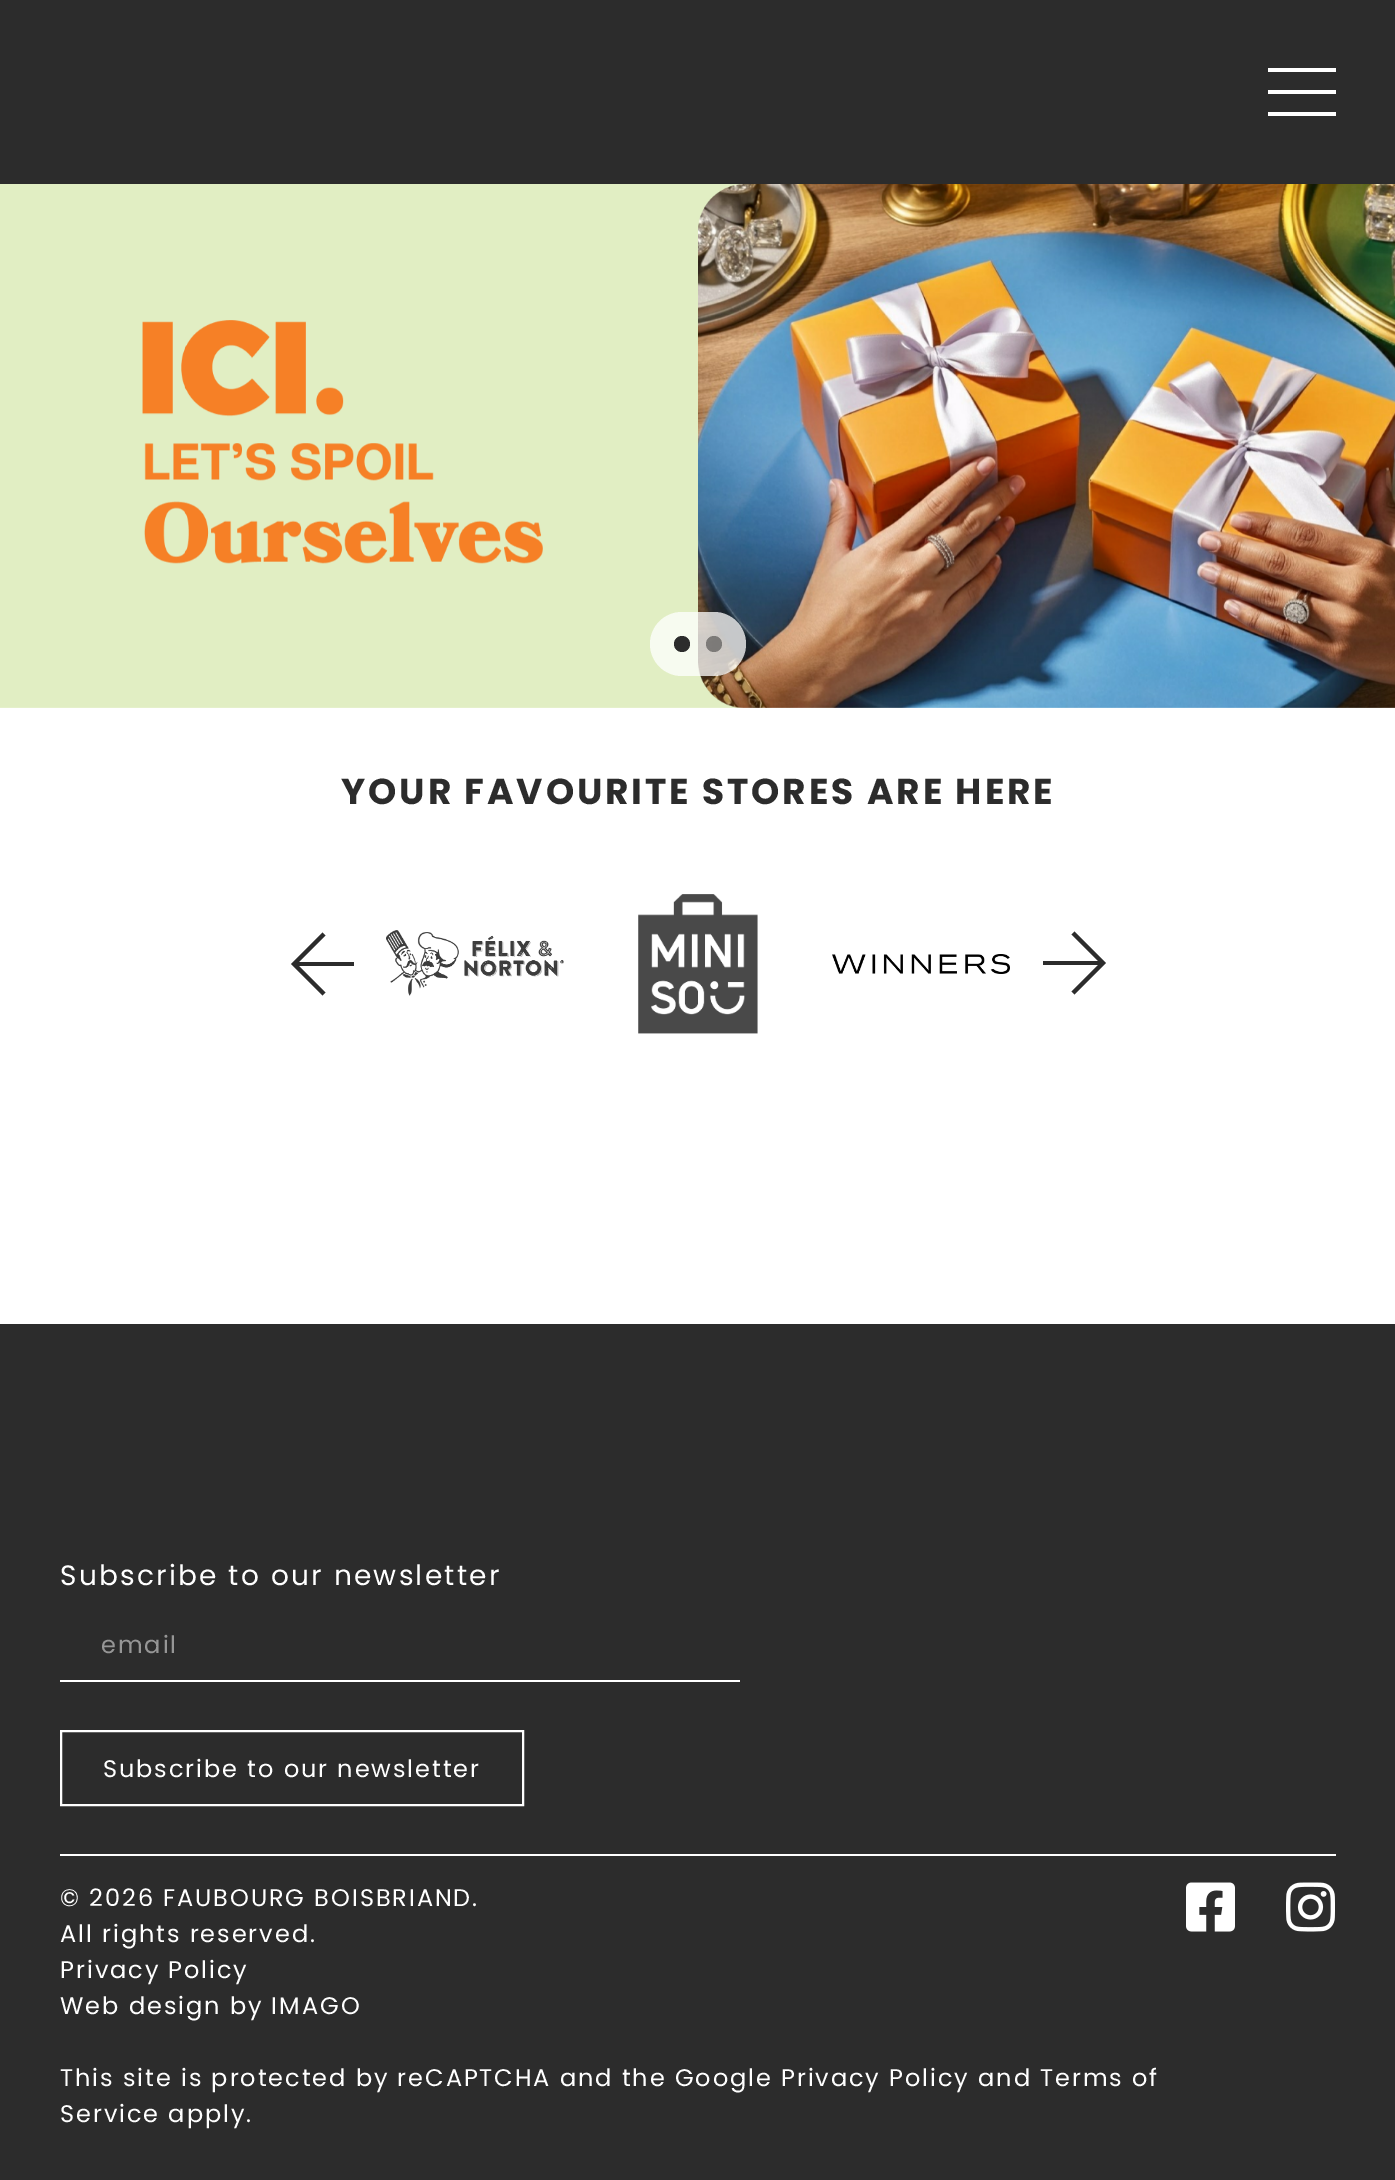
%!PS
<< /PageSize [1395 2180] /PageUsesTransparency true >> setpagedevice
/mt/moveto load def
/li/lineto load def
/fl/fill load def
/st/stroke load def
/lw/setlinewidth load def
/co { dup -16 bitshift 255 div exch dup -8 bitshift 255 and 255 div exch 255 and 255 div setrgbcolor } def
/fn { [ exch dup neg 0 0 3 -1 roll 0 0 ] selectfont } def
/bx { co rectfill } def
/al { dup .setfillconstantalpha .setstrokeconstantalpha } def
/ci { newpath 0 360 arc closepath } def
/rr { 5 dict begin { /r /h /w /y /x } { exch def } forall
  x r add y moveto x w add y 2 copy h add r arct x w add y h add x 1 index r arct
  x y h add x y r arct x y 2 copy exch w add exch r arct closepath end } def
/im { 5 dict begin { /h /w /y /x /name } { exch def } forall
  gsave x y translate w h scale
  w h 8 [w 0 0 h 0 0] name (r) file false 3 colorimage grestore end } def
0 .pushpdf14devicefilter
0 2180 translate 1 -1 scale
4 setmiterlimit
0 0 1395 2180 16#FFFFFF bx
0 0 1395 184 16#2C2C2C bx
1268 68 68 4 16#FFFFFF bx
1268 90 68 4 16#FFFFFF bx
1268 112 68 4 16#FFFFFF bx
(media/1.raw) 0 184 1395 524 im
0.75 al
650 612 96 64 32 rr fl
1 al
16#2C2C2C co
682 644 8 ci fl
0.5 al
714 644 8 ci fl
1 al
(media/2.raw) 386 930 178 66 im
(media/3.raw) 638 894 120 140 im
(media/4.raw) 832 954 178 20 im
4 lw
324 994 mt 294 964 li 324 934 li st
294 962 60 4 16#2C2C2C bx
1073 933 mt 1103 963 li 1073 993 li st
1043 961 60 4 16#2C2C2C bx
0 1324 1395 856 16#2C2C2C bx
60 1680 680 2 16#FFFFFF bx
2 lw
61 1731 462 74 rectstroke
60 1854 1276 2 16#FFFFFF bx
(media/5.raw) 1186 1882 49 50 im
(media/6.raw) 1286 1882 49 50 im
/Poppins-Bold 36 fn
16#2C2C2C co
341 804 mt 2.9 0 (YOUR FAVOURITE STORES ARE HERE) ashow
/Poppins-Regular 28 fn
16#FFFFFF co
60 1585 mt 2.25 0 (Subscribe to our newsletter) ashow
/Poppins-Regular 24 fn
16#969696 co
101 1653 mt 1.92 0 (email) ashow
16#FFFFFF co
103 1777 mt 1.92 0 (Subscribe to our newsletter) ashow
60 1906 mt 1.92 0 (© 2026 FAUBOURG BOISBRIAND.) ashow
60 1942 mt 1.92 0 (All rights reserved.) ashow
60 1978 mt 1.92 0 (Privacy Policy) ashow
60 2014 mt 1.92 0 (Web design by IMAGO) ashow
60 2086 mt 1.92 0 (This site is protected by reCAPTCHA and the Google Privacy Policy and Terms of) ashow
60 2122 mt 1.92 0 (Service apply.) ashow
.poppdf14devicefilter showpage
